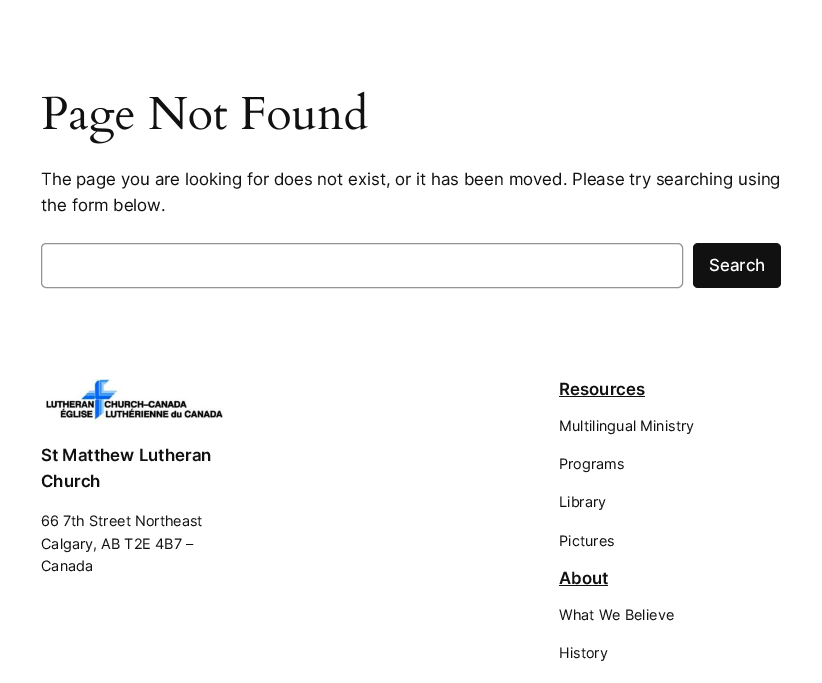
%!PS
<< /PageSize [822 683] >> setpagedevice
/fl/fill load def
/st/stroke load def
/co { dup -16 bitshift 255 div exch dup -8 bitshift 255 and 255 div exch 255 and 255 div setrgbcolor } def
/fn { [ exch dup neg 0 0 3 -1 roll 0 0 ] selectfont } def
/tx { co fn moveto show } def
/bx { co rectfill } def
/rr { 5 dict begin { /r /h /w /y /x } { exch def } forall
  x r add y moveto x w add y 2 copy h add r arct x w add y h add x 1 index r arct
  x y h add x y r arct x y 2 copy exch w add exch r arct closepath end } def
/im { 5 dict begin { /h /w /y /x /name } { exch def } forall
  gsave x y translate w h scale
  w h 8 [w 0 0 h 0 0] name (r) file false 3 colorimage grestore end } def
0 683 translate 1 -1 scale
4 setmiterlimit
0 0 822 683 16#FFFFFF bx
(media/1.raw) 41 91 327 53 im
16#949494 co
41.5 243.5 641 44 4.5 rr st
16#111111 co
693 243 88 45 5 rr fl
(media/2.raw) 45 379 179 44 im
559 396 86 1 16#111111 bx
559 585 49 1 16#111111 bx
(The page you are looking for does not exist, or it has been moved. Please try searching using) 41 185 /Inter-Regular 16.8 16#111111 tx
(the form below.) 41 211 /Inter-Regular 16.8 16#111111 tx
(Search) 709 271 /Inter-Medium 16.8 16#FFFFFF tx
(St Matthew Lutheran) 41 461 /Inter-SemiBold 16.8 16#111111 tx
(Church) 41 487 /Inter-SemiBold 16.8 16#111111 tx
(66 7th Street Northeast) 41 526 /Inter-Regular 14.4 16#111111 tx
(Calgary, AB T2E 4B7 –) 41 549 /Inter-Regular 14.4 16#111111 tx
(Canada) 41 571 /Inter-Regular 14.4 16#111111 tx
(Resources) 559 395 /Inter-SemiBold 16.8 16#111111 tx
(Multilingual Ministry) 559 431 /Inter-Regular 14.4 16#111111 tx
(Programs) 559 469 /Inter-Regular 14.4 16#111111 tx
(Library) 559 507 /Inter-Regular 14.4 16#111111 tx
(Pictures) 559 546 /Inter-Regular 14.4 16#111111 tx
(About) 559 584 /Inter-SemiBold 16.8 16#111111 tx
(What We Believe) 559 620 /Inter-Regular 14.4 16#111111 tx
(History) 559 658 /Inter-Regular 14.4 16#111111 tx
showpage
